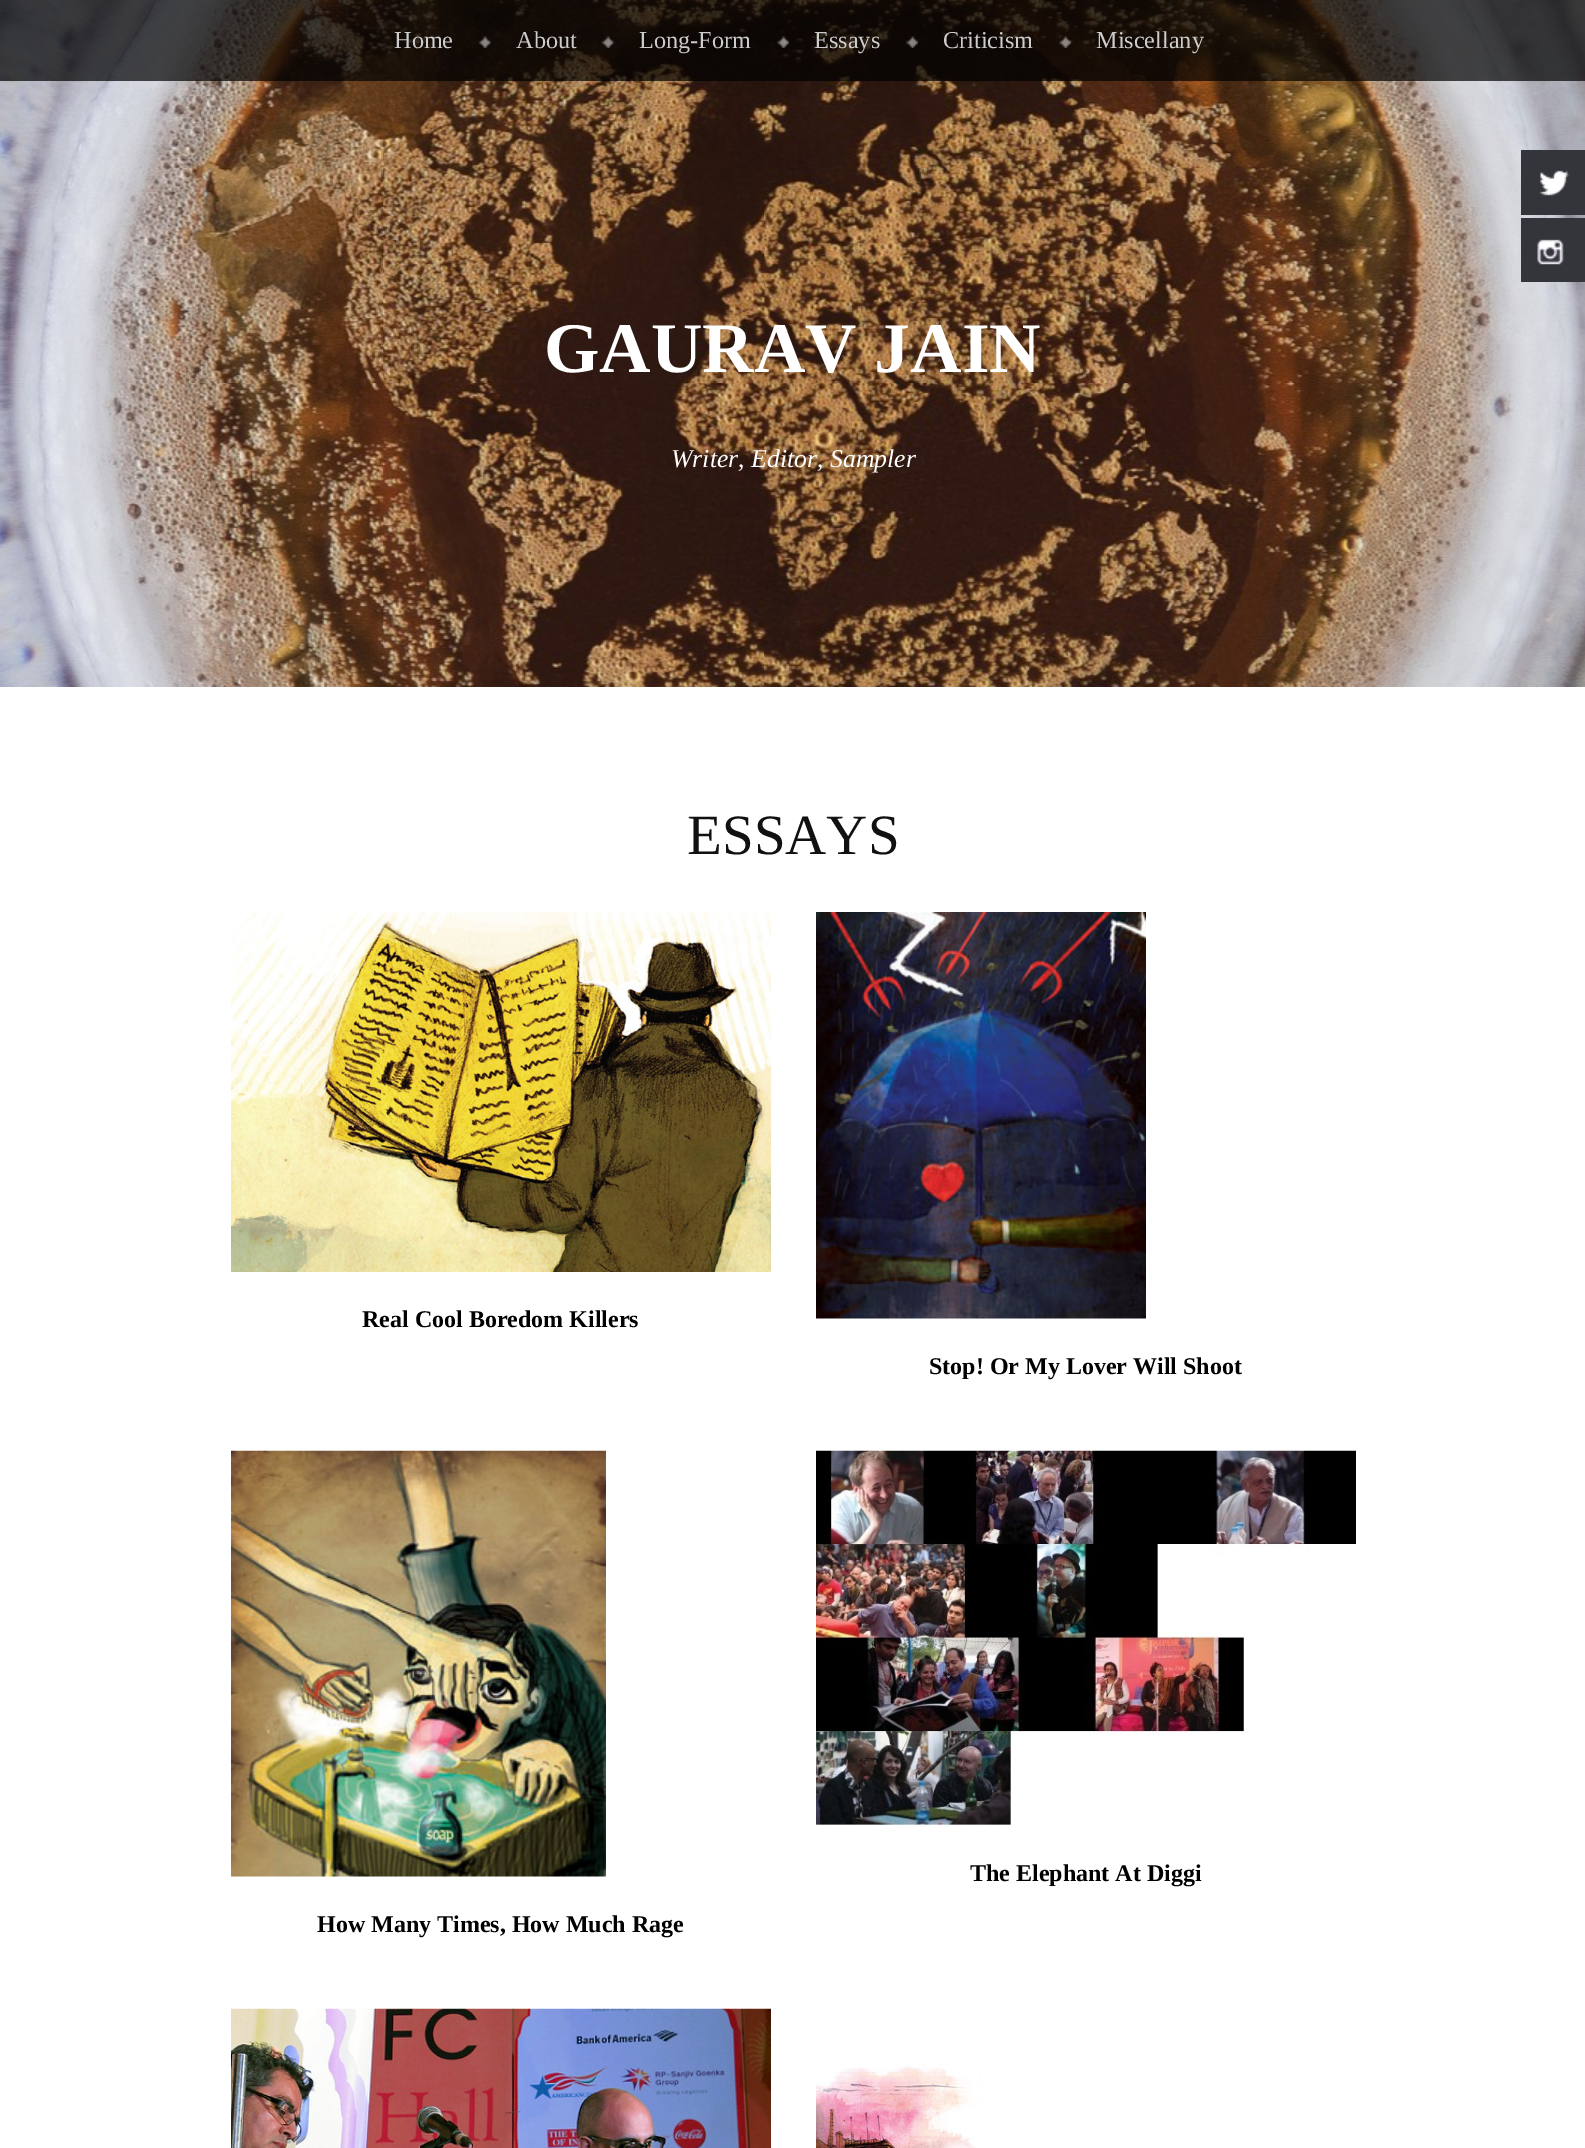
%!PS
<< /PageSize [1585 2148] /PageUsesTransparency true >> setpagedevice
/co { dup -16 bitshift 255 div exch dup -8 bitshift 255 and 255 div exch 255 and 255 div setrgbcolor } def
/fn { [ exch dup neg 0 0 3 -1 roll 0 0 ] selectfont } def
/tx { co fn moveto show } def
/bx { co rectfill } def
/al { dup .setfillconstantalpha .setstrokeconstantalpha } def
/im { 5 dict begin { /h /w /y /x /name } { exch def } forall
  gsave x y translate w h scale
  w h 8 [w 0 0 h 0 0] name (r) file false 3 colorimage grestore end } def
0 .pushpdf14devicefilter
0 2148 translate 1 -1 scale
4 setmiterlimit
0 0 1585 2148 16#FFFFFF bx
(media/1.raw) 0 0 1585 687 im
0.7 al
0 0 1585 81 16#000000 bx
1 al
(media/2.raw) 478 36 13 12 im
(media/3.raw) 601 36 13 12 im
(media/4.raw) 777 36 12 12 im
(media/5.raw) 906 36 12 12 im
(media/6.raw) 1059 36 12 12 im
(media/7.raw) 231 912 540 360 im
(media/8.raw) 816 912 330 407 im
(media/9.raw) 816 1450 540 376 im
(media/10.raw) 231 1450 375 427 im
(media/11.raw) 231 2008 540 140 im
(media/12.raw) 816 2010 214 138 im
1521 150 64 65 16#33353B bx
(media/13.raw) 1539 170 31 26 im
1521 218 64 64 16#33353B bx
(media/14.raw) 1537 239 27 26 im
(Home) 394 48 /LiberationSerif-Regular 24.25 16#CCCCCC tx
(About) 516 48 /LiberationSerif-Regular 24.25 16#CCCCCC tx
(Long-Form) 639 48 /LiberationSerif-Regular 24.25 16#CCCCCC tx
(Essays) 814 48 /LiberationSerif-Regular 24.25 16#CCCCCC tx
(Criticism) 943 48 /LiberationSerif-Regular 24.25 16#CCCCCC tx
(Miscellany) 1096 48 /LiberationSerif-Regular 24.25 16#CCCCCC tx
(GAURAV JAIN) 544 372 /LiberationSerif-Bold 71.25 16#FFFFFF tx
(Writer, Editor, Sampler) 671 467 /LiberationSerif-Italic 25.75 16#FFFFFF tx
(ESSAYS) 687 854 /LiberationSerif-Regular 57 16#111111 tx
(Real Cool Boredom Killers) 362 1327 /LiberationSerif-Bold 24 16#000000 tx
(Stop! Or My Lover Will Shoot) 929 1374 /LiberationSerif-Bold 24 16#000000 tx
(The Elephant At Diggi) 970 1881 /LiberationSerif-Bold 24 16#000000 tx
(How Many Times, How Much Rage) 317 1932 /LiberationSerif-Bold 24 16#000000 tx
.poppdf14devicefilter showpage
